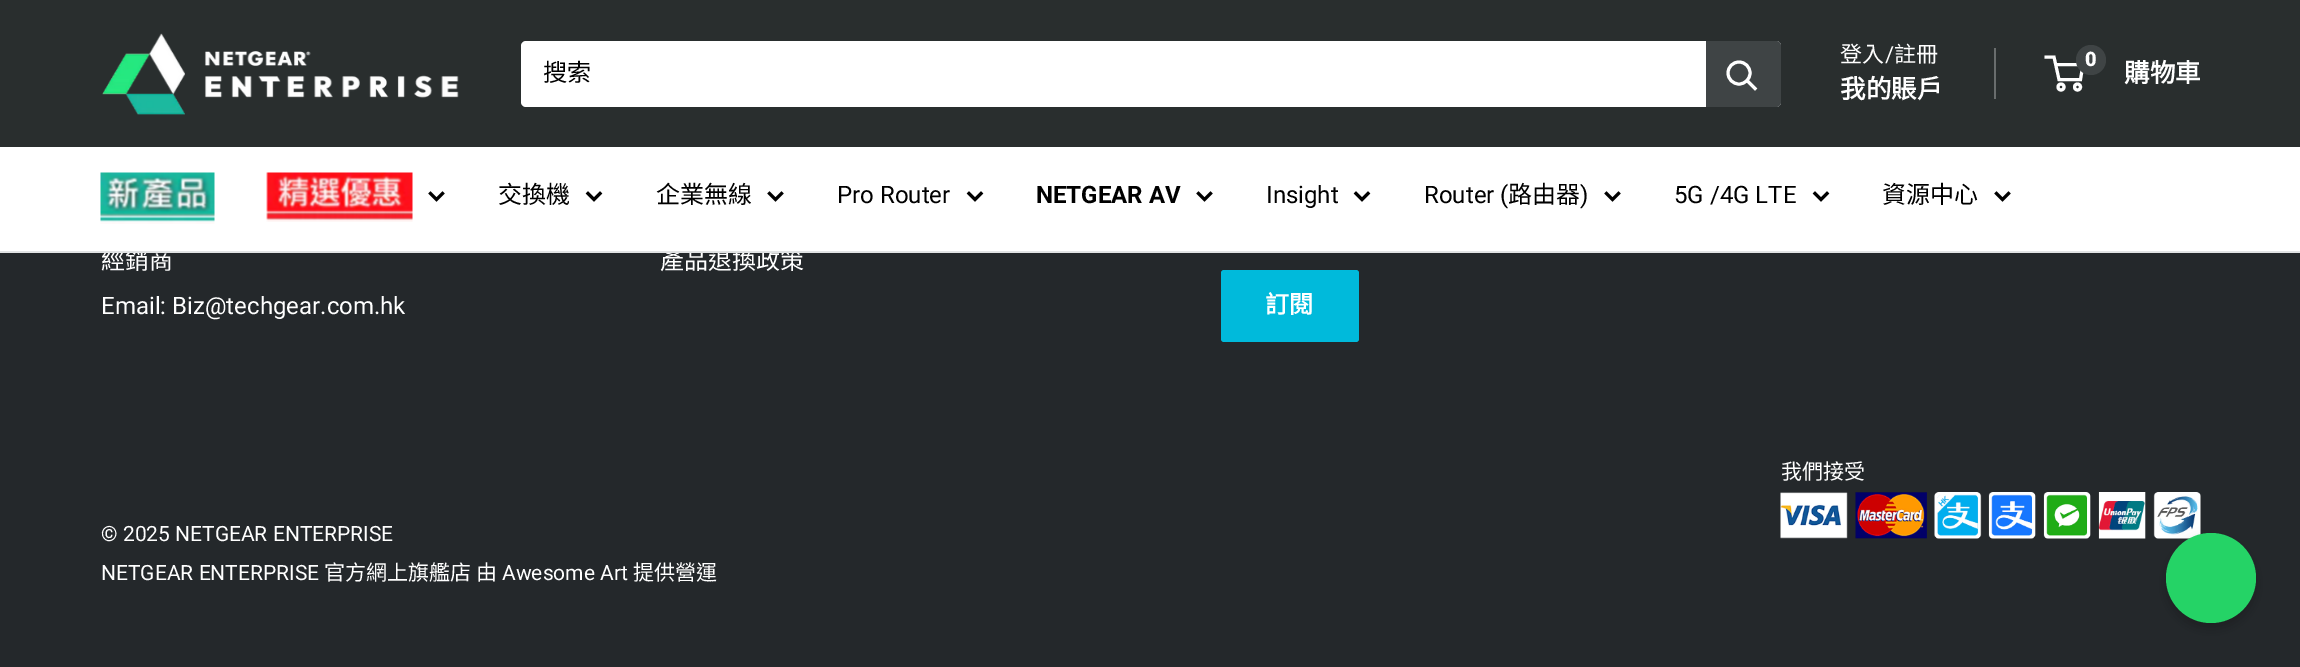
%!PS
<< /PageSize [2300 667] /PageUsesTransparency true >> setpagedevice
/mt/moveto load def
/li/lineto load def
/ct/curveto load def
/cp/closepath load def
/fl/fill load def
/st/stroke load def
/lw/setlinewidth load def
/co { dup -16 bitshift 255 div exch dup -8 bitshift 255 and 255 div exch 255 and 255 div setrgbcolor } def
/fn { [ exch dup neg 0 0 3 -1 roll 0 0 ] selectfont } def
/tx { co fn moveto show } def
/bx { co rectfill } def
/al { dup .setfillconstantalpha .setstrokeconstantalpha } def
/ci { newpath 0 360 arc closepath } def
/rr { 5 dict begin { /r /h /w /y /x } { exch def } forall
  x r add y moveto x w add y 2 copy h add r arct x w add y h add x 1 index r arct
  x y h add x y r arct x y 2 copy exch w add exch r arct closepath end } def
/sh { 12 dict begin { /a /b /q /h /w /y /x } { exch def } forall gsave /was 0 def
  9 -2 -9 { dup b mul 4 div /e exch def 1 sub .425 mul 2.718 exch exp 1 add a .99 .min exch div /now exch def
    1 1 now sub 1 was sub div sub al /was now def
    w h .min e 2 mul add 0 gt { x e sub y e sub w e 2 mul add h e 2 mul add
      q e add b .6 mul add w h .min 2 div e add .min 0 .max rr fill } if } for grestore end } def
/im { 5 dict begin { /h /w /y /x /name } { exch def } forall
  gsave x y translate w h scale
  w h 8 [w 0 0 h 0 0] name (r) file false 3 colorimage grestore end } def
0 .pushpdf14devicefilter
0 667 translate 1 -1 scale
4 setmiterlimit
0 0 2300 667 16#24282B bx
0 0 2300 147 16#292E2E bx
(media/1.raw) 102 33 357 82 im
16#FFFFFF co
521 41 1260 66 5 rr fl
16#3F4445 co
1706 41 mt 1776 41 li 1779 41 1781 43 1781 46 ct 1781 102 li 1781 105 1779 107 1776 107 ct 1706 107 li cp fl
16#FFFFFF co
3 lw
2 setlinecap
1755 88.5 mt 1747.5 81 li st
0 setlinecap
1739 73 11 ci st
1994 48 2 51 16#696D6D bx
16#FFFFFF co
2061 87 3 ci st
2077.5 87 3 ci st
2055.5 64.5 mt 2083 64.5 li 2080.5 79.5 li 2059 79.5 li 2054 57 li 2044.5 57 li st
16#3F4445 co
2091 60 15 ci fl
0 147 2300 104 16#FFFFFF bx
(media/2.raw) 100 172 115 52 im
(media/3.raw) 266 172 147 50 im
16#000000 co
2 setlinecap
442.5 193.5 mt 436.5 199.5 li 430.5 193.5 li st
600 193.5 mt 594 199.5 li 588 193.5 li st
781.5 193.5 mt 775.5 199.5 li 769.5 193.5 li st
981 193.5 mt 975 199.5 li 969 193.5 li st
1210.5 193.5 mt 1204.5 199.5 li 1198.5 193.5 li st
1368 193.5 mt 1362 199.5 li 1356 193.5 li st
1618.5 193.5 mt 1612.5 199.5 li 1606.5 193.5 li st
1827 193.5 mt 1821 199.5 li 1815 193.5 li st
2008.5 193.5 mt 2002.5 199.5 li 1996.5 193.5 li st
16#00BADB co
1221 270 138 72 3 rr fl
(media/4.raw) 1780 492 421 47 im
16#000000 co
2166 539 90 90 45 6 .2 sh
16#25D366 co
2211 578 45 ci fl
(搜索) 543 81 /NotoSansCJKHK-Regular 24 16#000000 tx
(登入) 1840 62 /NotoSansCJKHK-Regular 22 16#FFFFFF tx
(/) 1885 62 /Roboto-Regular 22 16#FFFFFF tx
(註冊) 1894 62 /NotoSansCJKHK-Regular 22 16#FFFFFF tx
(我的賬戶) 1840 98 /NotoSansCJKHK-Bold 25.5 16#FFFFFF tx
(0) 2085 66 /Roboto-Black 20 16#FFFFFF tx
(購物車) 2124 82 /NotoSansCJKHK-Bold 25.5 16#FFFFFF tx
(交換機) 498 203 /NotoSansCJKHK-Regular 24 16#000000 tx
(企業無線) 656 203 /NotoSansCJKHK-Regular 24 16#000000 tx
(Pro Router) 837 203 /Roboto-Regular 24 16#000000 tx
(NETGEAR AV) 1036 203 /Roboto-Bold 24 16#000000 tx
(Insight) 1266 203 /Roboto-Regular 24 16#000000 tx
(Router \() 1424 203 /Roboto-Regular 24 16#000000 tx
(路由器) 1508 203 /NotoSansCJKHK-Regular 24 16#000000 tx
(\)) 1580 203 /Roboto-Regular 24 16#000000 tx
(5G /4G LTE) 1674 203 /Roboto-Regular 24 16#000000 tx
(資源中心) 1882 203 /NotoSansCJKHK-Regular 24 16#000000 tx
(經銷商) 101 269 /NotoSansCJKHK-Regular 24 16#FFFFFF tx
(Email: Biz@techgear.com.hk) 101 314 /Roboto-Regular 24 16#FFFFFF tx
(產品退換政策) 660 269 /NotoSansCJKHK-Regular 24 16#FFFFFF tx
0 251 2300 2 16#E1E3E4 bx
(訂閱) 1265 313 /NotoSansCJKHK-Bold 24 16#FFFFFF tx
(我們接受) 1781 479 /NotoSansCJKHK-Regular 21 16#FFFFFF tx
(© 2025 NETGEAR ENTERPRISE) 101 541 /Roboto-Regular 21 16#FFFFFF tx
(NETGEAR ENTERPRISE) 101 580 /Roboto-Regular 21 16#FFFFFF tx
(官方網上旗艦店) 324 580 /NotoSansCJKHK-Regular 21 16#FFFFFF tx
(由) 476 580 /NotoSansCJKHK-Regular 21 16#FFFFFF tx
(Awesome Art) 502 580 /Roboto-Regular 21 16#FFFFFF tx
(提供營運) 633 580 /NotoSansCJKHK-Regular 21 16#FFFFFF tx
.poppdf14devicefilter showpage
